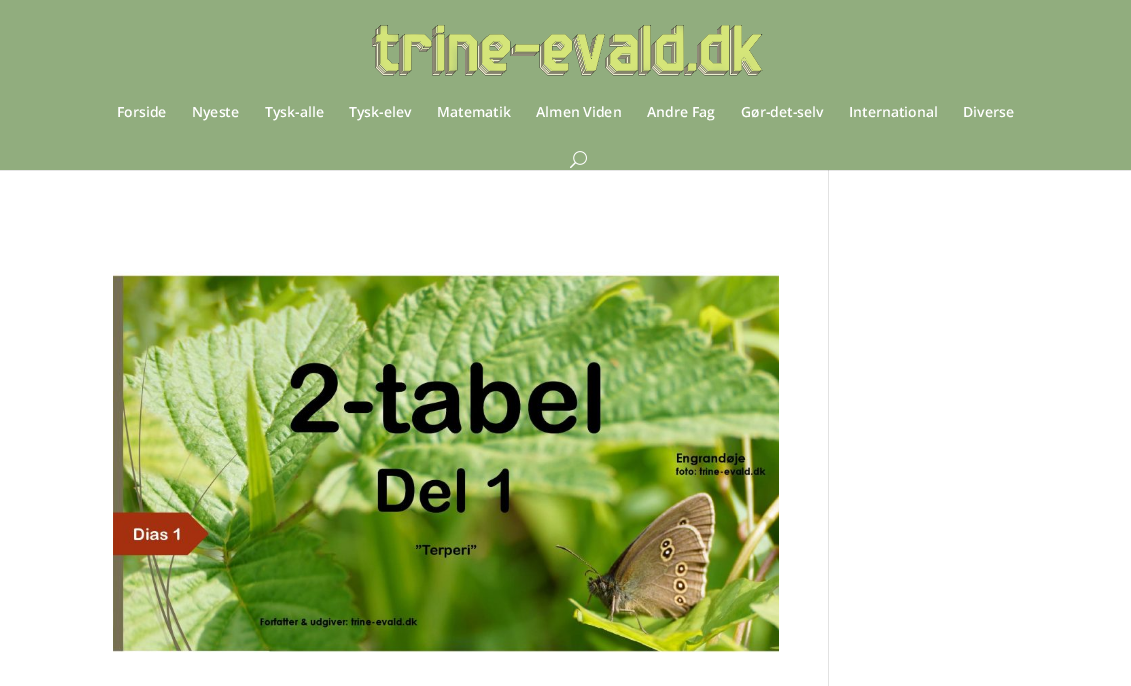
%!PS
<< /PageSize [1131 686] >> setpagedevice
/co { dup -16 bitshift 255 div exch dup -8 bitshift 255 and 255 div exch 255 and 255 div setrgbcolor } def
/fn { [ exch dup neg 0 0 3 -1 roll 0 0 ] selectfont } def
/tx { co fn moveto show } def
/bx { co rectfill } def
/im { 5 dict begin { /h /w /y /x /name } { exch def } forall
  gsave x y translate w h scale
  w h 8 [w 0 0 h 0 0] name (r) file false 3 colorimage grestore end } def
0 686 translate 1 -1 scale
4 setmiterlimit
0 0 1131 686 16#FFFFFF bx
0 0 1131 170 16#91AD7E bx
(media/1.raw) 372 25 391 51 im
(media/2.raw) 570 151 17 18 im
0 170 1131 1 16#E6E6E6 bx
(media/3.raw) 113 271 666 382 im
828 170 1 516 16#E2E2E2 bx
828 170 1 1 16#CBCBCB bx
(Forside) 117 117 /OpenSans-SemiBold 14 16#FFFFFF tx
(Nyeste) 192 117 /OpenSans-SemiBold 14 16#FFFFFF tx
(Tysk-alle) 265 117 /OpenSans-SemiBold 14 16#FFFFFF tx
(Tysk-elev) 349 117 /OpenSans-SemiBold 14 16#FFFFFF tx
(Matematik) 437 117 /OpenSans-SemiBold 14 16#FFFFFF tx
(Almen Viden) 536 117 /OpenSans-SemiBold 14 16#FFFFFF tx
(Andre Fag) 647 117 /OpenSans-SemiBold 14 16#FFFFFF tx
(Gør-det-selv) 741 117 /OpenSans-SemiBold 14 16#FFFFFF tx
(International) 849 117 /OpenSans-SemiBold 14 16#FFFFFF tx
(Diverse) 963 117 /OpenSans-SemiBold 14 16#FFFFFF tx
showpage
